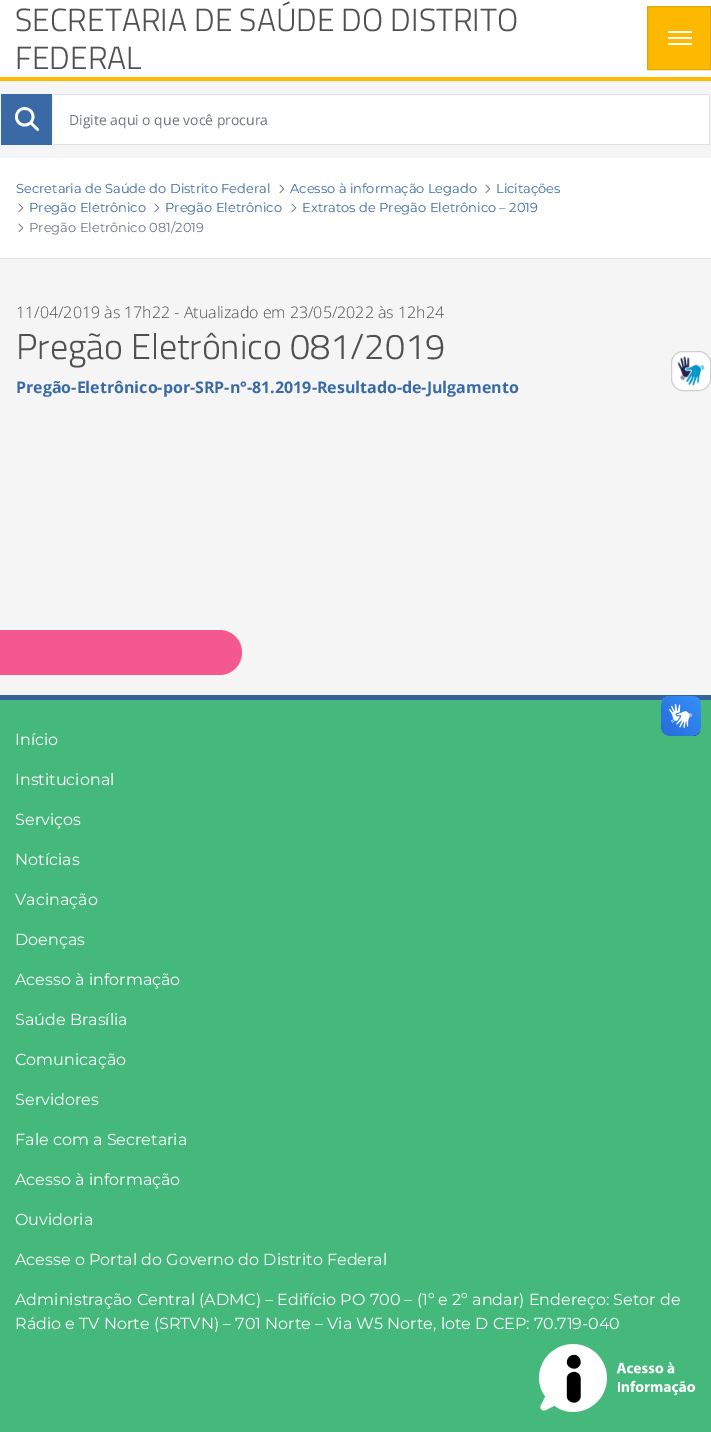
%!PS
<< /PageSize [711 1432] >> setpagedevice
/mt/moveto load def
/li/lineto load def
/ct/curveto load def
/cp/closepath load def
/fl/fill load def
/st/stroke load def
/gs/gsave load def
/gr/grestore load def
/co { dup -16 bitshift 255 div exch dup -8 bitshift 255 and 255 div exch 255 and 255 div setrgbcolor } def
/fn { [ exch dup neg 0 0 3 -1 roll 0 0 ] selectfont } def
/tx { co fn moveto show } def
/bx { co rectfill } def
/rr { 5 dict begin { /r /h /w /y /x } { exch def } forall
  x r add y moveto x w add y 2 copy h add r arct x w add y h add x 1 index r arct
  x y h add x y r arct x y 2 copy exch w add exch r arct closepath end } def
/im { 5 dict begin { /h /w /y /x /name } { exch def } forall
  gsave x y translate w h scale
  w h 8 [w 0 0 h 0 0] name (r) file false 3 colorimage grestore end } def
0 1432 translate 1 -1 scale
4 setmiterlimit
0 0 711 1432 16#F5F5F5 bx
0 0 711 77 16#FFFFFF bx
16#FCB900 co
647.5 6.5 mt 710.5 6.5 li 710.5 69.5 li 647.5 69.5 li cp gs fl gr
16#E3A700 co
st
16#FFFFFF co
668 31 24 2 1 rr fl
668 37 24 2 1 rr fl
668 43 24 2 1 rr fl
0 77 711 4 16#FCB900 bx
1 94 51 51 16#396AA5 bx
(media/1.raw) 15 107 24 24 im
54 95 655 49 16#FFFFFF bx
54 94 656 1 16#E0E0E0 bx
709 94 1 51 16#E0E0E0 bx
54 144 656 1 16#E0E0E0 bx
0 158 711 100 16#FFFFFF bx
0 258 711 1 16#E0E0E0 bx
(media/2.raw) 279 184 6 9 im
(media/2.raw) 485 184 6 9 im
(media/3.raw) 18 203 6 10 im
(media/3.raw) 154 203 6 10 im
(media/3.raw) 291 203 6 10 im
(media/2.raw) 18 223 6 9 im
0 700 711 732 16#45B97C bx
0 695 711 5 16#346399 bx
(media/4.raw) 539 1344 157 68 im
16#FFFFFF co
671.5 351.5 39 39 11.5 rr gs fl gr
16#D0D0D0 co
st
(media/5.raw) 677 356 28 30 im
16#F3588E co
-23 630 mt 219.5 630 li 232 630 242 640 242 652.5 ct 242 665 232 675 219.5 675 ct -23 675 li cp fl
(media/6.raw) 661 696 40 40 im
(media/7.raw) 661 696 40 40 im
(SECRETARIA DE SAÚDE DO DISTRITO) 15 31 /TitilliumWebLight-Light 32 16#505050 tx
(FEDERAL) 15 69 /TitilliumWebLight-Light 32 16#505050 tx
(Digite aqui o que você procura) 69 125 /OpenSans-Regular 14 16#6C757D tx
(Secretaria de Saúde do Distrito Federal) 16 193 /Montserrat-Thin 13 16#396AA5 tx
(Acesso à informação Legado) 290 193 /Montserrat-Thin 13 16#396AA5 tx
(Licitações) 496 193 /Montserrat-Thin 13 16#396AA5 tx
(Pregão Eletrônico) 29 212 /Montserrat-Thin 13 16#396AA5 tx
(Pregão Eletrônico) 165 212 /Montserrat-Thin 13 16#396AA5 tx
(Extratos de Pregão Eletrônico – 2019) 302 212 /Montserrat-Thin 13 16#396AA5 tx
(Pregão Eletrônico 081/2019) 29 232 /Montserrat-Thin 13 16#6C757D tx
(11/04/2019 às 17h22 - Atualizado em 23/05/2022 às 12h24) 16 318 /OpenSans-Light 16 16#505050 tx
(Pregão Eletrônico 081/2019) 16 359 /TitilliumWebLight-Light 36 16#505050 tx
(Pregão-Eletrônico-por-SRP-n°-81.2019-Resultado-de-Julgamento) 16 393 /OpenSans-Bold 16 16#396AA5 tx
(Início) 15 745 /Montserrat-Thin 16 16#FFFFFF tx
(Institucional) 15 785 /Montserrat-Thin 16 16#FFFFFF tx
(Serviços) 15 825 /Montserrat-Thin 16 16#FFFFFF tx
(Notícias) 15 865 /Montserrat-Thin 16 16#FFFFFF tx
(Vacinação) 15 905 /Montserrat-Thin 16 16#FFFFFF tx
(Doenças) 15 945 /Montserrat-Thin 16 16#FFFFFF tx
(Acesso à informação) 15 985 /Montserrat-Thin 16 16#FFFFFF tx
(Saúde Brasília) 15 1025 /Montserrat-Thin 16 16#FFFFFF tx
(Comunicação) 15 1065 /Montserrat-Thin 16 16#FFFFFF tx
(Servidores) 15 1105 /Montserrat-Thin 16 16#FFFFFF tx
(Fale com a Secretaria) 15 1145 /Montserrat-Thin 16 16#FFFFFF tx
(Acesso à informação) 15 1185 /Montserrat-Thin 16 16#FFFFFF tx
(Ouvidoria) 15 1225 /Montserrat-Thin 16 16#FFFFFF tx
(Acesse o Portal do Governo do Distrito Federal) 15 1265 /Montserrat-Thin 16 16#FFFFFF tx
(Administração Central \(ADMC\) – Edifício PO 700 – \(1º e 2º andar\) Endereço: Setor de) 15 1305 /Montserrat-Thin 16 16#FFFFFF tx
(Rádio e TV Norte \(SRTVN\) – 701 Norte – Via W5 Norte, lote D CEP: 70.719-040) 15 1329 /Montserrat-Thin 16 16#FFFFFF tx
showpage
